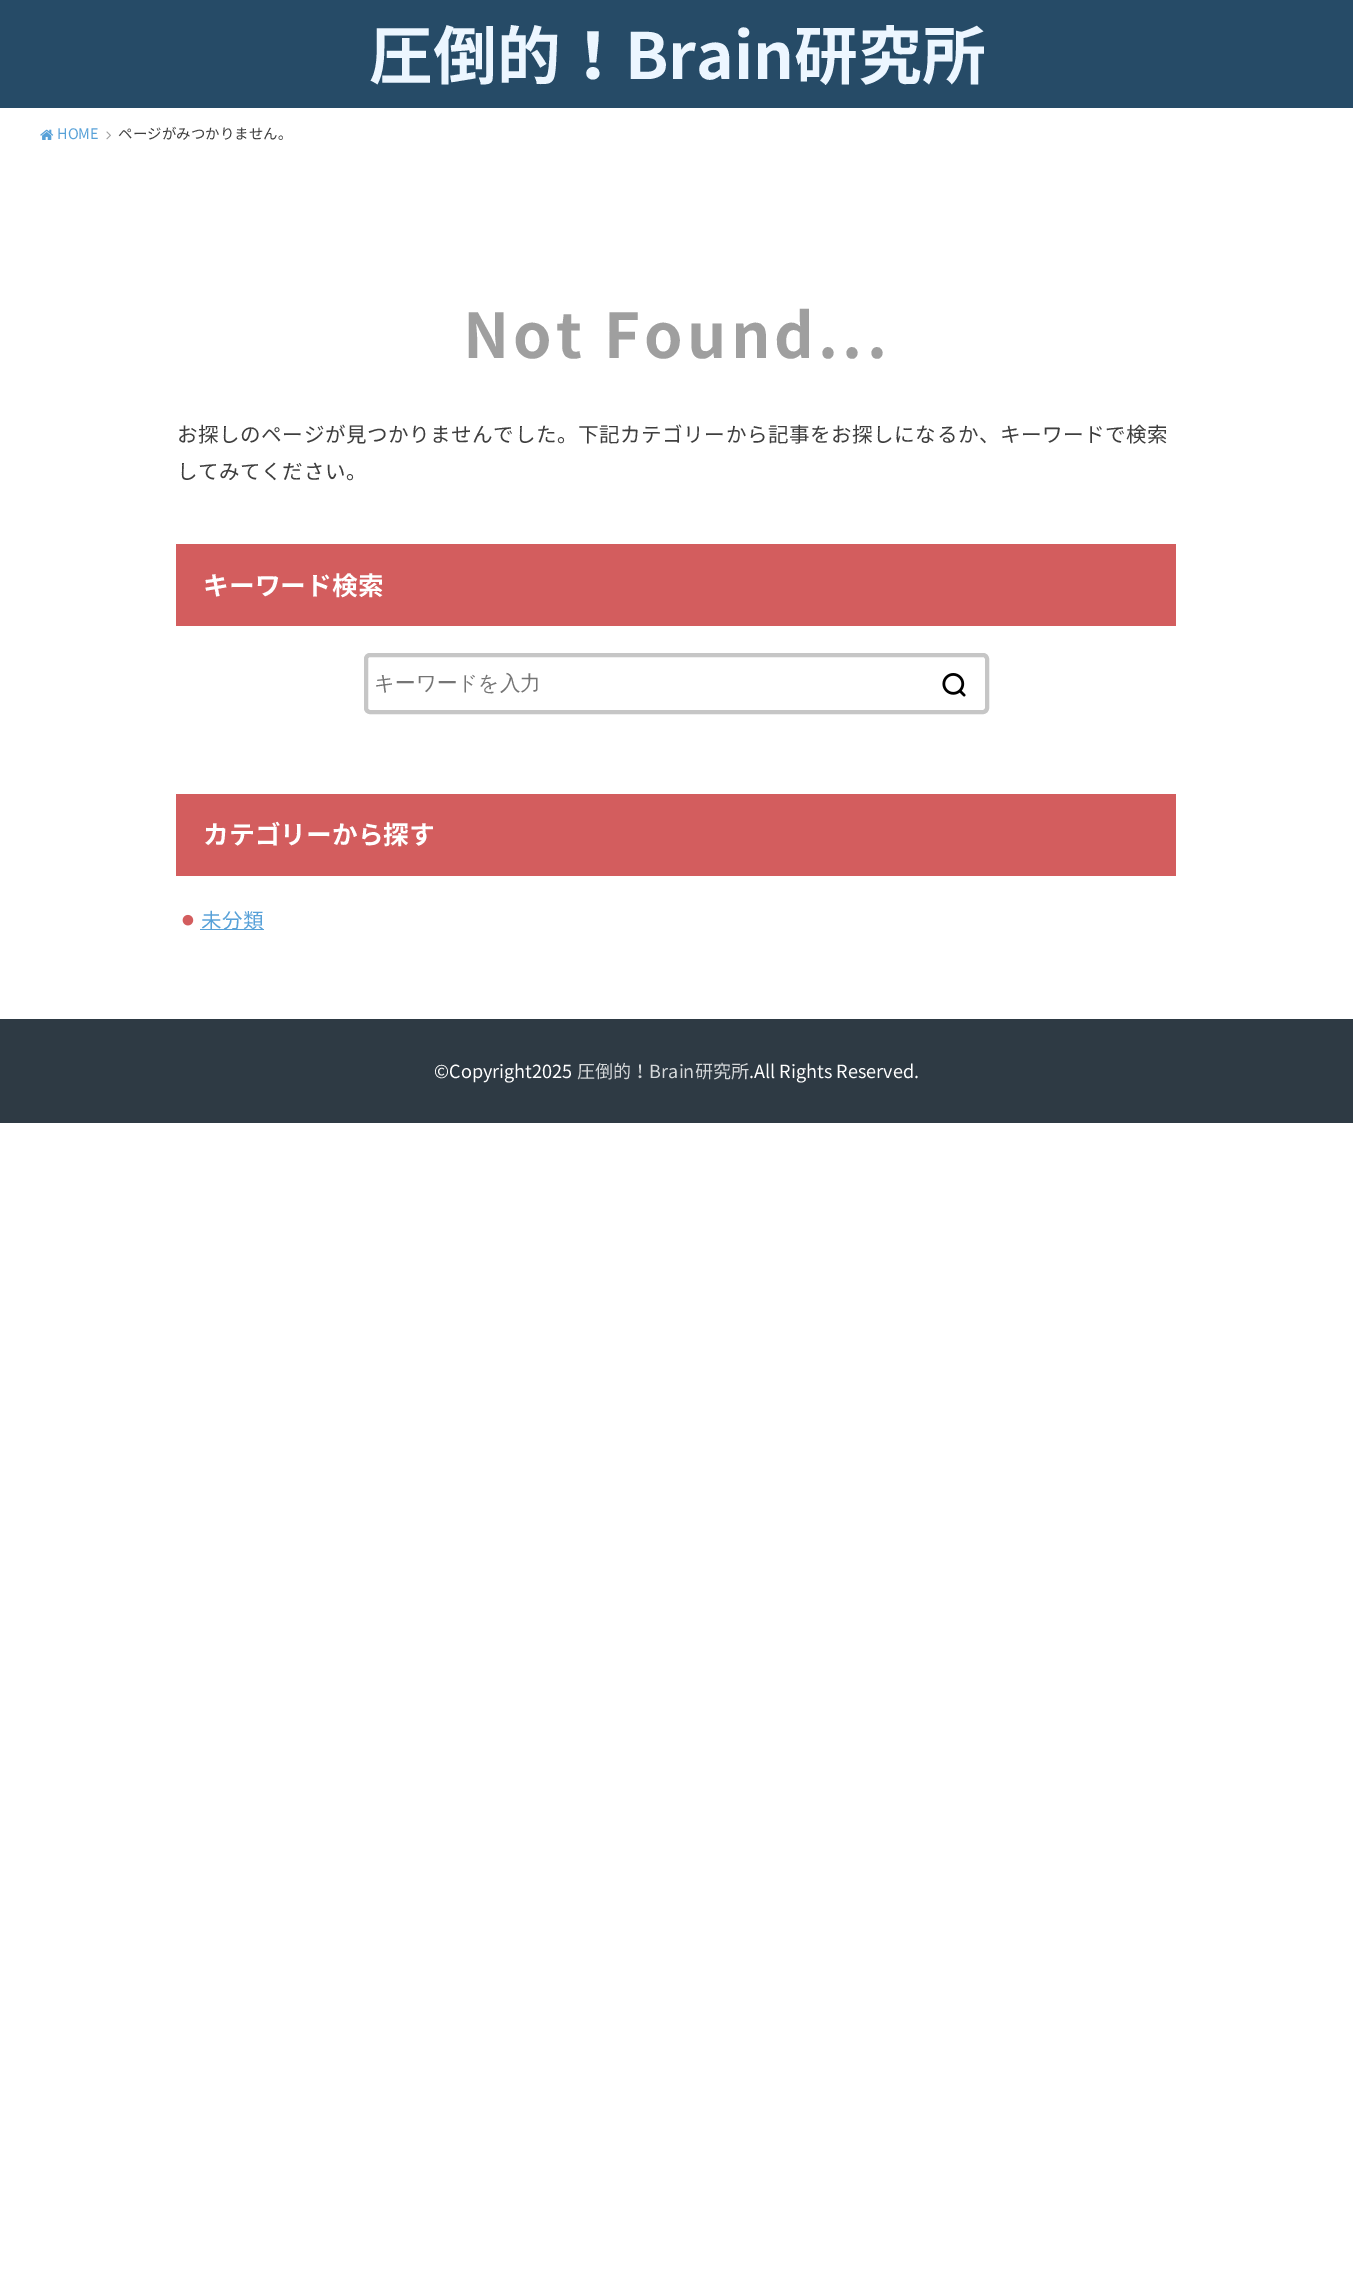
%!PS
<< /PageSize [1353 2275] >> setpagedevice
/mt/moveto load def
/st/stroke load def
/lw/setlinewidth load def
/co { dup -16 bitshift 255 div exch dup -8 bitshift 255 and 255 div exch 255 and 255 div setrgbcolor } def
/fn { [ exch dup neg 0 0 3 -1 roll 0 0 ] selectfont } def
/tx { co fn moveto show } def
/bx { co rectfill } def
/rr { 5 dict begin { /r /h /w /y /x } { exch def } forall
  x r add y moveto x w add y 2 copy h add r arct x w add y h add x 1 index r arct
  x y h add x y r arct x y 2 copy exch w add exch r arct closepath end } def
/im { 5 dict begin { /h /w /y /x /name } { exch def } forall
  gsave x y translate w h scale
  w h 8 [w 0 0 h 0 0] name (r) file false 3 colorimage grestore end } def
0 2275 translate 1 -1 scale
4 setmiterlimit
0 0 1353 2275 16#FFFFFF bx
0 0 1353 108 16#264B67 bx
(media/1.raw) 40 129 14 11 im
(media/2.raw) 106 131 5 9 im
176 544 1000 82 16#D35D5E bx
16#C6C6C6 co
4 lw
366 655 621 57 4 rr st
(media/3.raw) 942 673 24 24 im
176 794 1000 82 16#D35D5E bx
(media/4.raw) 182 914 12 12 im
200 929 64 1 16#57A1D8 bx
0 1019 1353 104 16#2E3A44 bx
(圧倒的！Brain研究所) 369 79 /NotoSansJP-Bold 63.9 16#ECF6FF tx
(HOME) 57 139 /NotoSansJP-Regular 14.5 16#57A1D8 tx
(ページがみつかりません。) 118 139 /NotoSansJP-Regular 14.5 16#3E3E3E tx
/NotoSansJP-Bold 61.75 fn
16#9F9F9F co
463 358 mt 4.1 0 (Not Found...) ashow
/NotoSansJP-Regular 20.6 fn
16#3E3E3E co
177 442 mt .5 0 (お探しのページが見つかりませんでした。下記カテゴリーから記事をお探しになるか、キーワードで検索) ashow
177 479 mt .5 0 (してみてください。) ashow
(キーワード検索) 203 595 /NotoSansJP-Bold 25.75 16#FFFFFF tx
(キーワードを入力) 374 690 /WenQuanYiZenHei-Medium 20.6 16#757575 tx
(カテゴリーから探す) 203 844 /NotoSansJP-Bold 25.75 16#FFFFFF tx
/NotoSansJP-Regular 20.6 fn
16#57A1D8 co
201 928 mt .5 0 (未分類) ashow
(©Copyright2025) 434 1078 /NotoSansJP-Regular 18.1 16#FFFFFF tx
(圧倒的！Brain研究所) 577 1078 /NotoSansJP-Regular 18.1 16#D5D8DA tx
(.All Rights Reserved.) 749 1078 /NotoSansJP-Regular 18.1 16#FFFFFF tx
showpage
